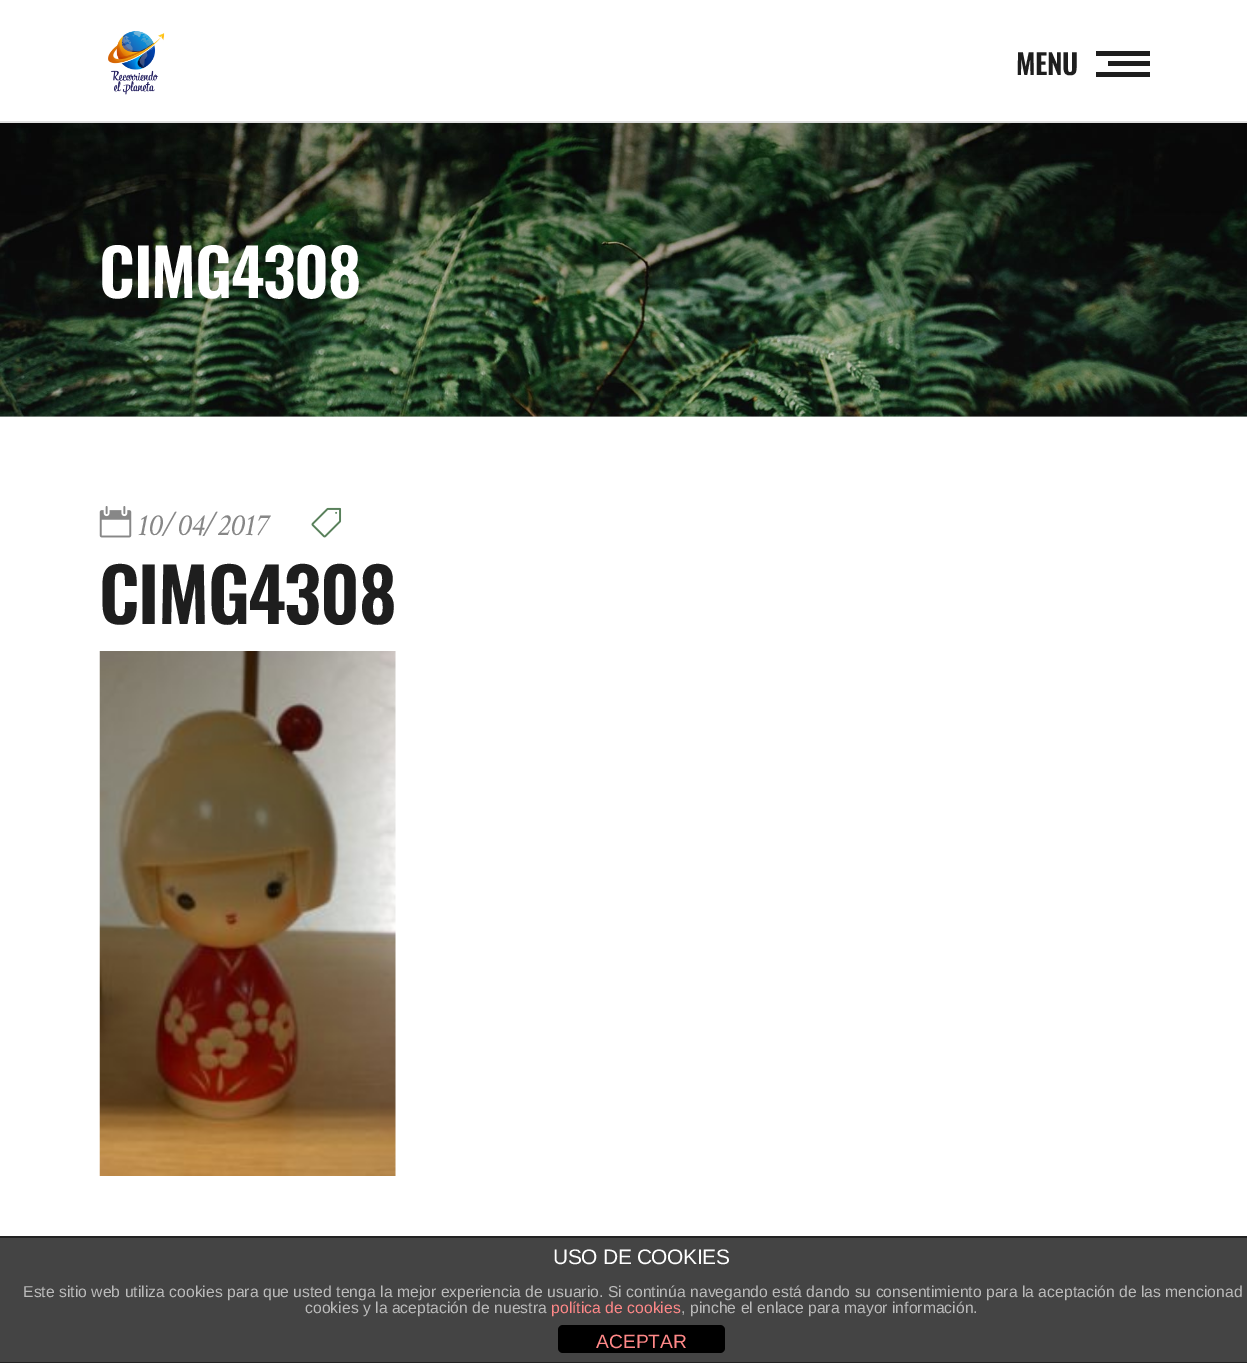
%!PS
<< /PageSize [1247 1363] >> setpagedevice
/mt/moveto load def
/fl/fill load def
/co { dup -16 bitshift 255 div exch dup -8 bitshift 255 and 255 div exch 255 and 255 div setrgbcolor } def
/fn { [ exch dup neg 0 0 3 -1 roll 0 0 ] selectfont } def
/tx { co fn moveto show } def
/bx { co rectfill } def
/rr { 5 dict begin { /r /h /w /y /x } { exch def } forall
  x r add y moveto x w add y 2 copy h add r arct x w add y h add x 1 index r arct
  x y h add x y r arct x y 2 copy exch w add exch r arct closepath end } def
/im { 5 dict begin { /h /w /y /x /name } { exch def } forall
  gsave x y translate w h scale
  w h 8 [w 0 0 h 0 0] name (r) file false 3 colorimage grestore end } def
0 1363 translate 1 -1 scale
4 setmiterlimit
0 0 1247 1363 16#FFFFFF bx
0 121 1247 2 16#E1E1E1 bx
(media/1.raw) 108 31 57 64 im
1096 51 54 5 16#1E1E1E bx
1108 61 42 5 16#1E1E1E bx
1096 72 54 5 16#1E1E1E bx
0 416 1247 1 16#CCCCCC bx
(media/2.raw) 0 123 1247 294 im
(media/3.raw) 99 506 33 32 im
(media/4.raw) 311 507 31 31 im
(media/5.raw) 99 651 297 525 im
0 1238 1247 124 16#444444 bx
0 1236 1247 2 16#222222 bx
0 1362 1247 1 16#222222 bx
16#000000 co
558 1325 167 28 5 rr fl
/Oswald-SemiBold 28 fn
16#1E1E1E co
1016 75 mt -.5 0 (MENU) ashow
/Oswald-SemiBold 64.75 fn
16#FFFFFF co
99 298 mt -1.25 0 (CIMG4308) ashow
(10/04/2017) 137 535 /CrimsonText-Italic 31.5 16#878787 tx
/Oswald-SemiBold 73.5 fn
16#1E1E1E co
99 624 mt -1.5 0 (CIMG4308) ashow
/LiberationSans-Regular 21 fn
16#FFFFFF co
553 1264 mt -.4 0 (USO DE COOKIES) ashow
(Este sitio web utiliza cookies para que usted tenga la mejor experiencia de usuario. Si continúa navegando está dando su consentimiento para la aceptación de las mencionad) 23 1297 /LiberationSans-Regular 15.75 16#BBBBBB tx
(cookies y la aceptación de nuestra) 305 1313 /LiberationSans-Regular 15.75 16#BBBBBB tx
(política de cookies) 551 1313 /LiberationSans-Regular 15.75 16#FF8888 tx
(, pinche el enlace para mayor información.) 681 1313 /LiberationSans-Regular 15.75 16#BBBBBB tx
(ACEPTAR) 596 1348 /LiberationSans-Regular 19.25 16#FF8888 tx
showpage
